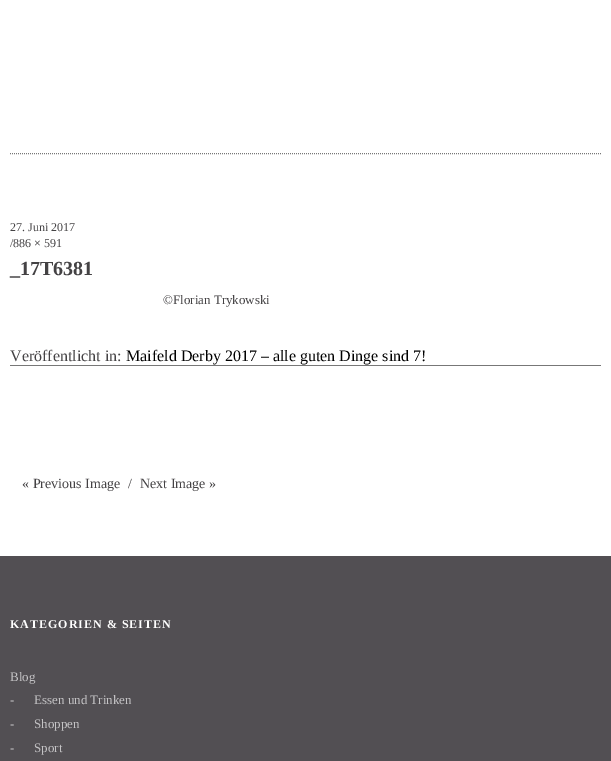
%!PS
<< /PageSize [611 761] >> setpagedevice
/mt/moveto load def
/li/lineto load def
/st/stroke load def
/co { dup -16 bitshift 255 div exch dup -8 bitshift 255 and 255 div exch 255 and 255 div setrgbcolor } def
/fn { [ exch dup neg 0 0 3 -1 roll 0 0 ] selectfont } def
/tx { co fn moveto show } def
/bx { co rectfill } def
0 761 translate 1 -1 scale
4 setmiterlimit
0 0 611 761 16#FFFFFF bx
16#777777 co
[1 1] 0 setdash
10 153.5 mt 601 153.5 li st
10 365 591 1 16#777777 bx
0 556 611 205 16#524F53 bx
(27. Juni 2017) 10 231 /LiberationSerif-Regular 12 16#444244 tx
(/886 × 591) 10 247 /LiberationSerif-Regular 12 16#444244 tx
(_17T6381) 10 275 /LiberationSerif-Bold 20 16#444244 tx
(©Florian Trykowski) 163 304 /LiberationSerif-Regular 13 16#444244 tx
(Veröffentlicht in:) 10 361 /LiberationSerif-Regular 16 16#444244 tx
(Maifeld Derby 2017 – alle guten Dinge sind 7!) 126 361 /LiberationSerif-Regular 16 16#000000 tx
(« Previous Image) 22 488 /LiberationSerif-Regular 14 16#444244 tx
(/) 128 488 /LiberationSerif-Regular 14 16#444244 tx
(Next Image ») 140 488 /LiberationSerif-Regular 14 16#444244 tx
/LiberationSerif-Bold 12 fn
16#FFFFFF co
10 628 mt 1 0 (KATEGORIEN & SEITEN) ashow
(Blog) 10 681 /LiberationSerif-Regular 13 16#C4C3C5 tx
(-) 10 704 /LiberationSerif-Regular 13 16#C4C3C5 tx
(Essen und Trinken) 34 704 /LiberationSerif-Regular 13 16#C4C3C5 tx
(-) 10 728 /LiberationSerif-Regular 13 16#C4C3C5 tx
(Shoppen) 34 728 /LiberationSerif-Regular 13 16#C4C3C5 tx
(-) 10 752 /LiberationSerif-Regular 13 16#C4C3C5 tx
(Sport) 34 752 /LiberationSerif-Regular 13 16#C4C3C5 tx
showpage
